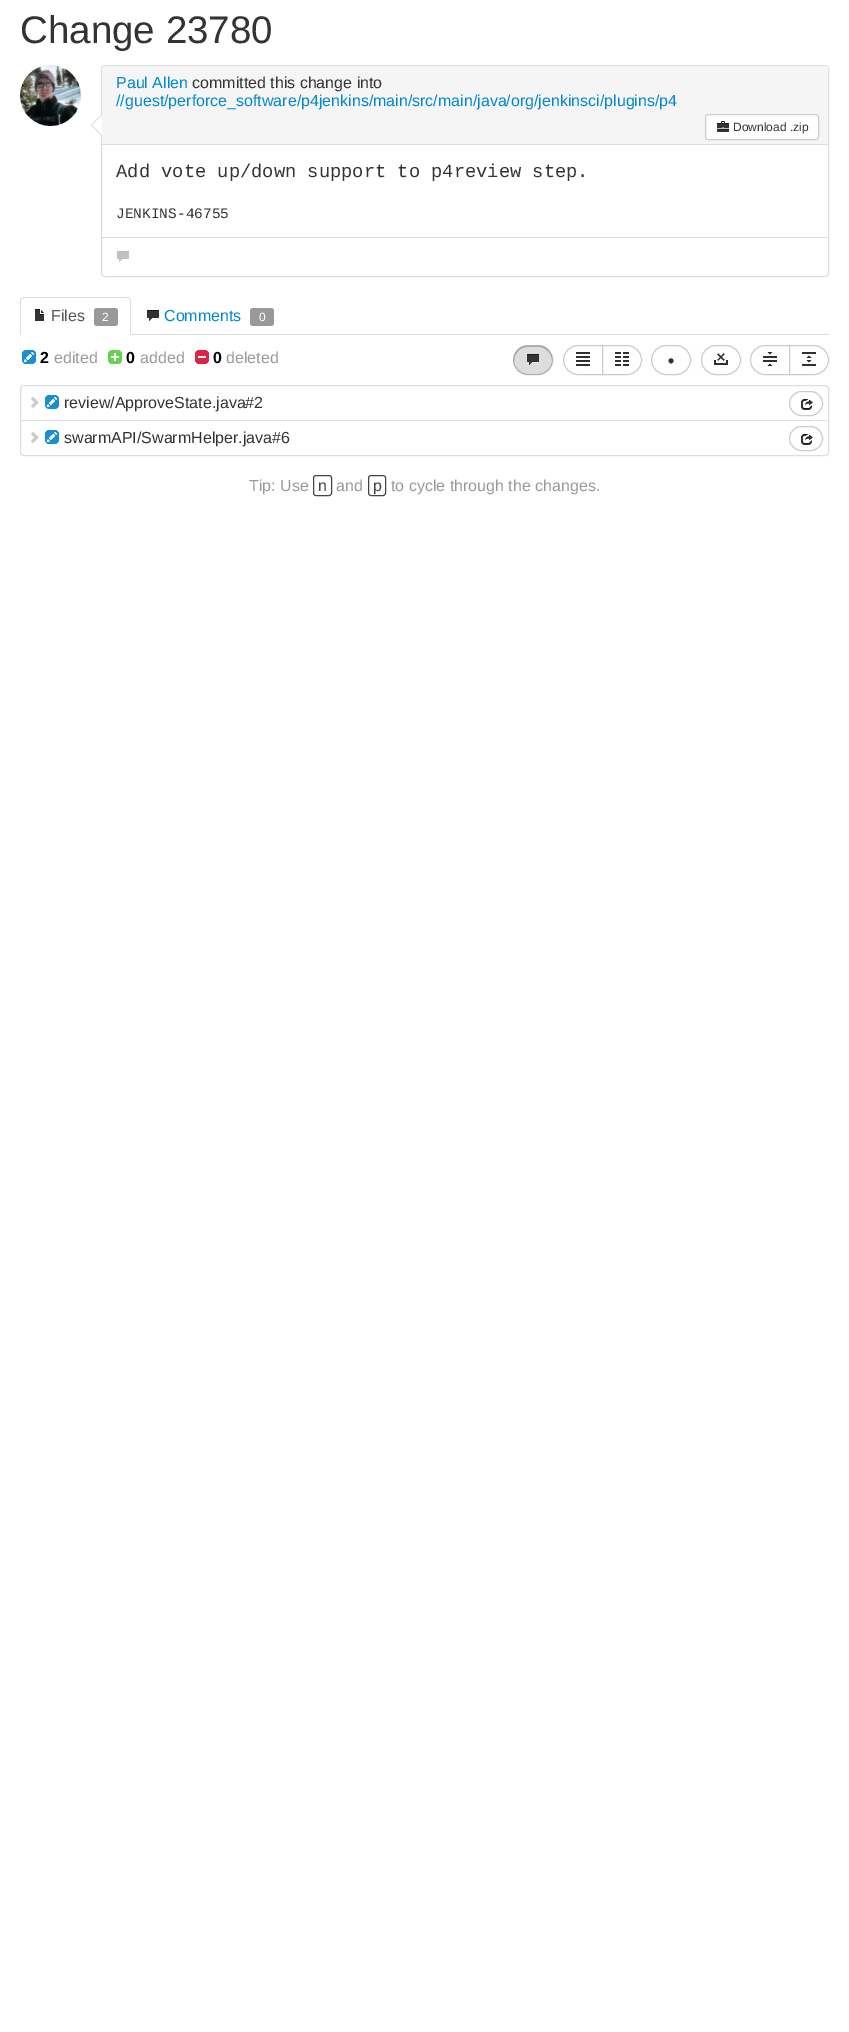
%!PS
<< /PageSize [849 2032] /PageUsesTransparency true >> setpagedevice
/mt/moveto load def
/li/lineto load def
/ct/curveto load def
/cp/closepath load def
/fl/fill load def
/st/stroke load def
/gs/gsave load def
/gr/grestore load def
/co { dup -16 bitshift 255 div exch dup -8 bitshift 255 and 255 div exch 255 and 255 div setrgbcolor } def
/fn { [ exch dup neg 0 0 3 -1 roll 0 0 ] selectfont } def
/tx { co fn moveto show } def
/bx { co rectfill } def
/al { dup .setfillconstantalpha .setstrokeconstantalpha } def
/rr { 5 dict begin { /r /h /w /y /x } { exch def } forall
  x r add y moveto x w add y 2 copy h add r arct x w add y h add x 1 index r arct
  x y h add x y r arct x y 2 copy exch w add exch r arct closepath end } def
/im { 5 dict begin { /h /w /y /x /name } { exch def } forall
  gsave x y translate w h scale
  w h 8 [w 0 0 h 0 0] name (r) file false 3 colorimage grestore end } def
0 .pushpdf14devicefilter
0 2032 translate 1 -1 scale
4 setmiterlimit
0 0 849 2032 16#FFFFFF bx
(media/1.raw) 20 65 61 61 im
16#DDDDDD co
101.5 65.5 727 211 3.5 rr st
16#CCCCCC co
102 114 mt 102 136 li 91 125 li cp fl
16#FFFFFF co
102 115 mt 102 135 li 92 125 li cp fl
16#F5F5F5 co
105 66 mt 825 66 li 826.5 66 828 67.5 828 69 ct 828 145 li 102 145 li 102 69 li 102 67.5 103.5 66 105 66 ct cp fl
102 144 726 1 16#DDDDDD bx
16#FFFFFF co
705 114 114 26 3 rr fl
0.2 al
16#000000 co
705.5 114.5 113 25 2.5 rr st
1 al
(media/2.raw) 717 121 12 11 im
102 237 726 1 16#DDDDDD bx
(media/3.raw) 117 251 12 11 im
131 334 698 1 16#DDDDDD bx
24 297 mt 21 298 li 22 299 li 24 298 li 127 298 li 129 299 li 130 298 li 127 297 li cp fl
131 335 mt 131 301 li 131 300 130.5 299 130 298 ct 129 299 li 130 299 130 300 130 301 ct 130 334 li cp fl
20 335 mt 21 334 li 21 301 li 21 300 21 299 22 299 ct 21 298 li 20.5 299 20 300 20 301 ct cp fl
(media/4.raw) 35 309 9 12 im
16#999999 co
94 308 24 18 3 rr fl
(media/5.raw) 147 310 12 11 im
250 308 24 18 3 rr fl
(media/6.raw) 22 350 14 14 im
(media/7.raw) 108 350 14 14 im
(media/8.raw) 195 350 14 14 im
16#DDDDDD co
513 345 40 30 15 rr fl
16#B1B1B1 co
528 347 mt 535.5 347 542.5 345.5 548.5 351.5 ct 550.5 354 552 357 552 360.5 ct 552 354 547.5 347.5 541 346.5 ct 533 346 li 525 346.5 li 518 348 513 355 514 362.5 ct 513.5 355 518.5 347 528 347 ct cp fl
0.2 al
16#000000 co
513.5 345.5 39 29 14.5 rr st
1 al
(media/9.raw) 527 354 12 12 im
16#CCCCCC co
578 345.5 mt 602.5 345.5 li 602.5 374.5 li 578 374.5 li 570 374.5 563.5 368 563.5 360 ct 563.5 352 570 345.5 578 345.5 ct cp st
(media/10.raw) 576 352 14 14 im
16#FFFFFF co
602.5 345.5 mt 627 345.5 li 635 345.5 641.5 352 641.5 360 ct 641.5 368 635 374.5 627 374.5 ct 602.5 374.5 li cp gs fl gr
16#CCCCCC co
st
(media/11.raw) 615 352 14 14 im
651.5 345.5 39 29 14.5 rr st
701.5 345.5 39 29 14.5 rr st
(media/12.raw) 714 353 14 12 im
765 345.5 mt 789.5 345.5 li 789.5 374.5 li 765 374.5 li 757 374.5 750.5 368 750.5 360 ct 750.5 352 757 345.5 765 345.5 ct cp st
(media/13.raw) 763 352 14 14 im
16#FFFFFF co
789.5 345.5 mt 814 345.5 li 822 345.5 828.5 352 828.5 360 ct 828.5 368 822 374.5 814 374.5 ct 789.5 374.5 li cp gs fl gr
16#CCCCCC co
st
(media/14.raw) 802 352 14 14 im
16#DDDDDD co
20.5 385.5 808 70 3.5 rr st
(media/15.raw) 31 397 8 11 im
(media/6.raw) 45 395 14 14 im
16#CCCCCC co
789.5 391.5 33 24 12 rr st
(media/16.raw) 801 399 12 11 im
21 420 807 1 16#DDDDDD bx
(media/15.raw) 31 432 8 11 im
(media/6.raw) 45 430 14 14 im
16#CCCCCC co
789.5 426.5 33 24 12 rr st
(media/16.raw) 801 434 12 11 im
16#444444 co
313.5 475.5 18 20 2.5 rr st
368.5 475.5 17 20 2.5 rr st
(Change 23780) 20 43 /Arimo-Regular 38.5 16#333333 tx
(Paul Allen) 116 88 /Arimo-Regular 16 16#0088CC tx
(committed this change into) 192 88 /Arimo-Regular 16 16#333333 tx
(//guest/perforce_software/p4jenkins/main/src/main/java/org/jenkinsci/plugins/p4) 116 106 /Arimo-Regular 16 16#0088CC tx
(Download .zip) 733 131 /Arimo-Regular 12 16#333333 tx
(Add vote up/down support to p4review step.) 116 177 /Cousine-Regular 18.75 16#333333 tx
(JENKINS-46755) 116 218 /Cousine-Regular 14.5 16#333333 tx
(Files) 51 321 /Arimo-Regular 16 16#555555 tx
(2) 102 321 /Arimo-Regular 12 16#FFFFFF tx
(Comments) 164 321 /Arimo-Regular 16 16#0088CC tx
(0) 259 321 /Arimo-Regular 12 16#FFFFFF tx
(2) 40 363 /Arimo-Bold 16 16#000000 tx
(edited) 54 363 /Arimo-Regular 16 16#999999 tx
(0) 126 363 /Arimo-Bold 16 16#000000 tx
(added) 140 363 /Arimo-Regular 16 16#999999 tx
(0) 213 363 /Arimo-Bold 16 16#000000 tx
(deleted) 226 363 /Arimo-Regular 16 16#999999 tx
(•) 667 365 /Lato-Regular 14 16#333333 tx
(review/ApproveState.java#2) 64 408 /Arimo-Regular 16 16#333333 tx
(swarmAPI/SwarmHelper.java#6) 64 443 /Arimo-Regular 16 16#333333 tx
(Tip: Use) 249 491 /Arimo-Regular 16 16#999999 tx
(n) 318 491 /Arimo-Regular 16 16#444444 tx
(and) 336 491 /Arimo-Regular 16 16#999999 tx
(p) 373 491 /Arimo-Regular 16 16#444444 tx
(to cycle through the changes.) 391 491 /Arimo-Regular 16 16#999999 tx
.poppdf14devicefilter showpage
